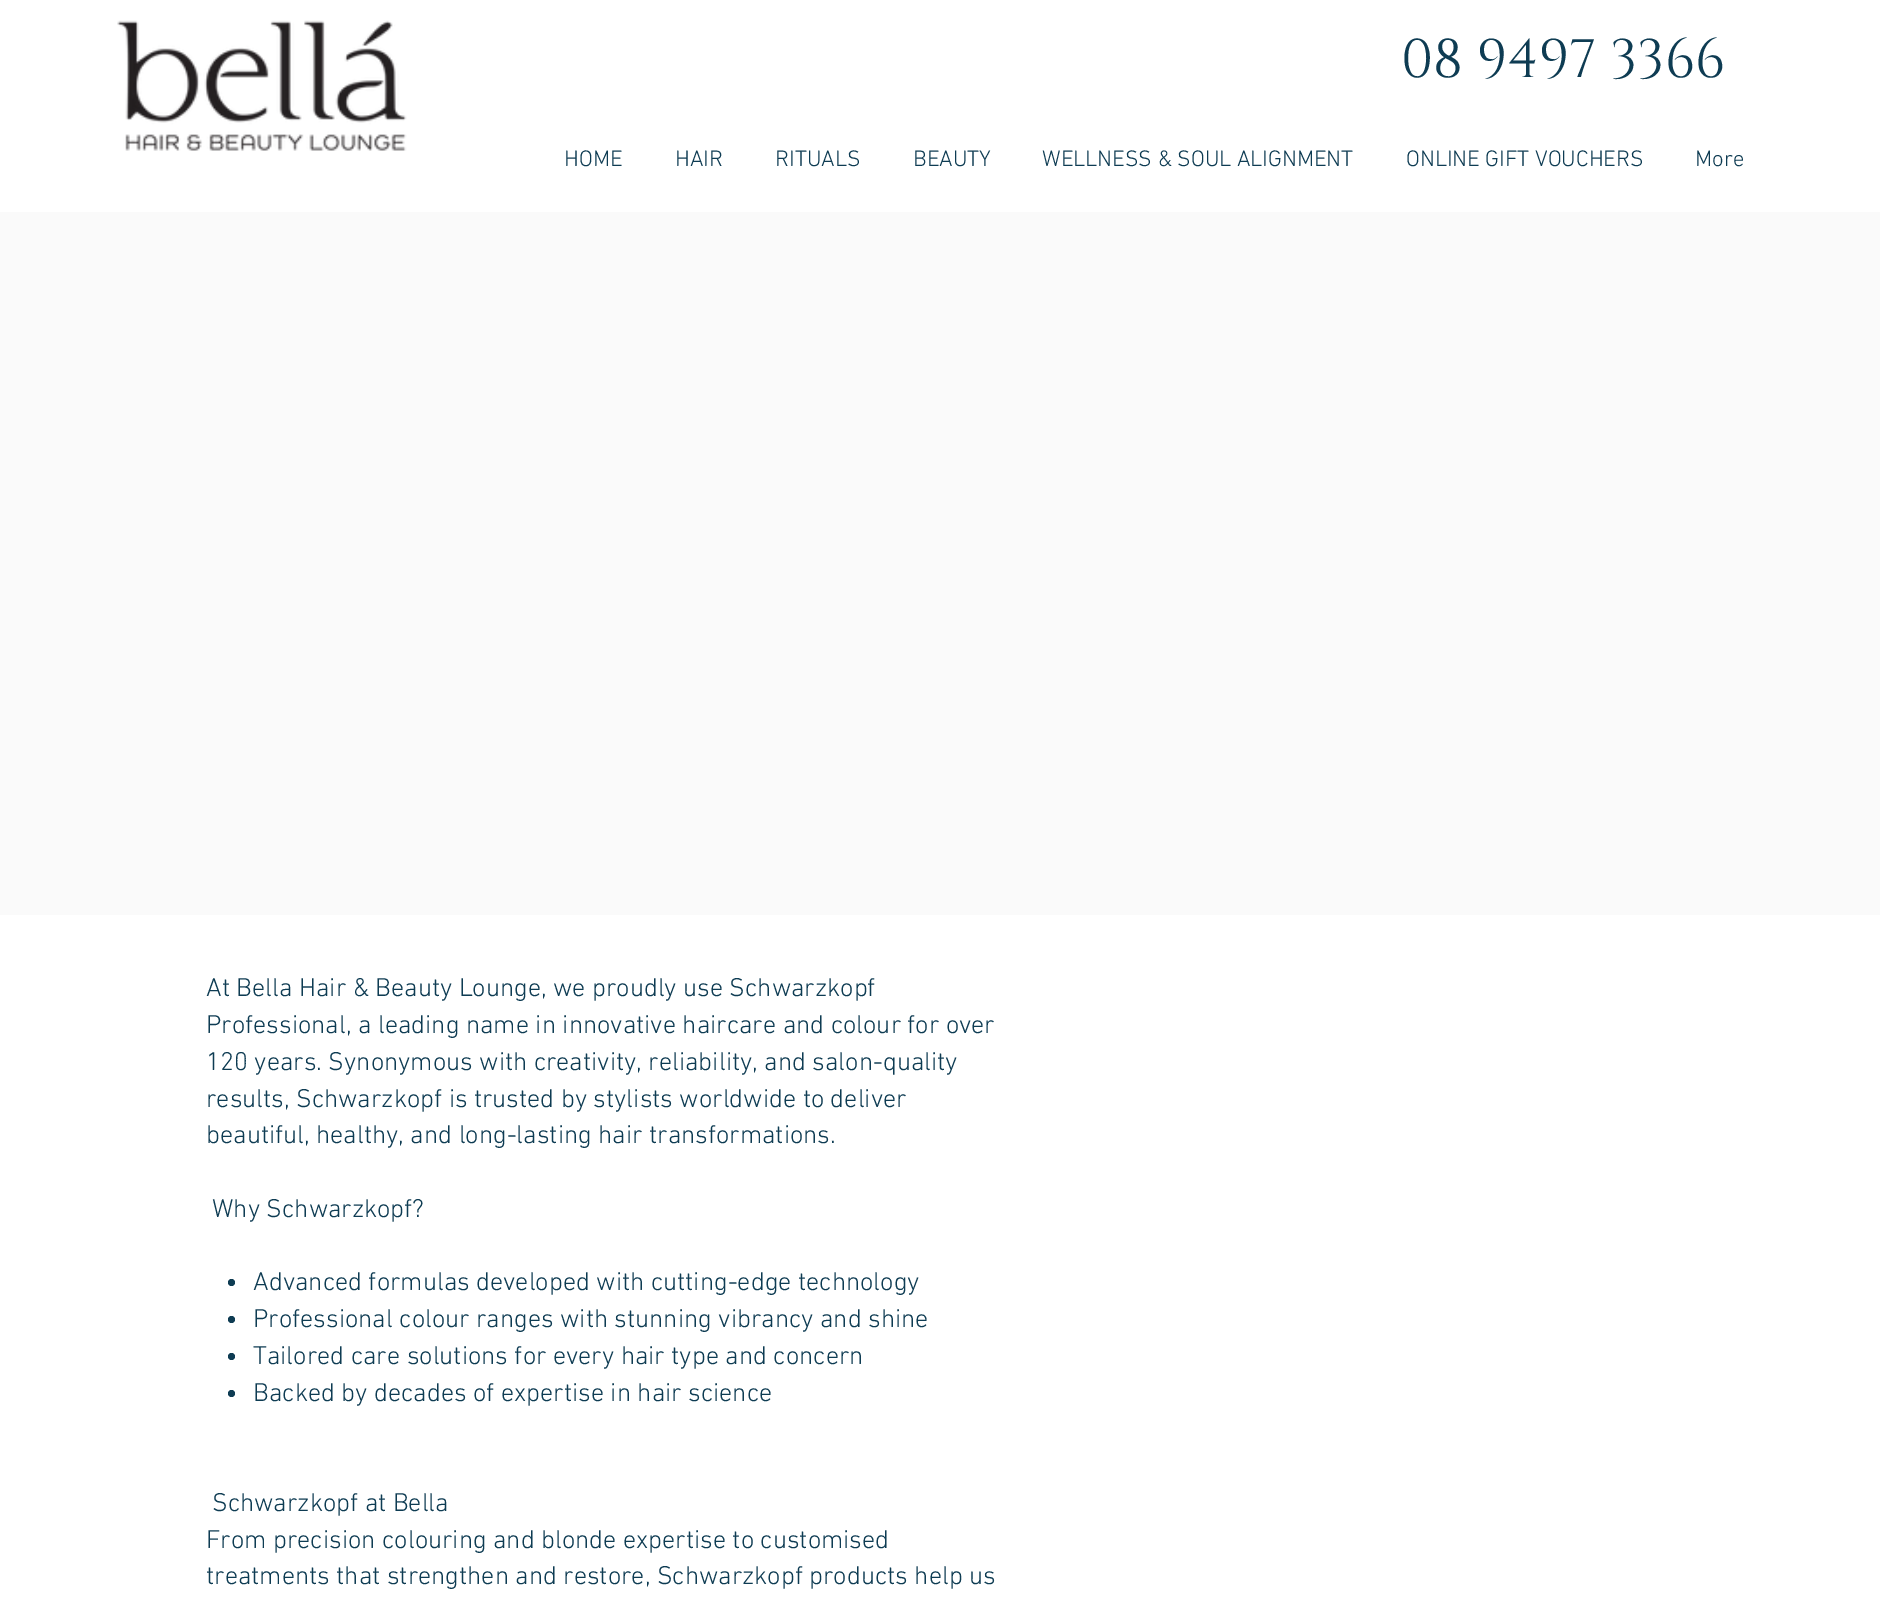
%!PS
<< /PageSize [1880 1598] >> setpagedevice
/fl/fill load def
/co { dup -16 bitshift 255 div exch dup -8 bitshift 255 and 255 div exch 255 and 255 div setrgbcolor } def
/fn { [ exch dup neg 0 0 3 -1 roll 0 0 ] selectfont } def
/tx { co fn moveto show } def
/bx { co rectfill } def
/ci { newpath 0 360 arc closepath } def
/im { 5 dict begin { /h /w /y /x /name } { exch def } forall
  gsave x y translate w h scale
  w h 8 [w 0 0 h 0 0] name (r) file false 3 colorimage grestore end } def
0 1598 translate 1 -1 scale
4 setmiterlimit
0 0 1880 1598 16#FFFFFF bx
(media/1.raw) 117 20 290 131 im
0 212 1880 703 16#FAFAFA bx
16#0E3C53 co
231.5 1282.5 3.5 ci fl
231.5 1319.5 3.5 ci fl
231.5 1356.5 3.5 ci fl
231.5 1393.5 3.5 ci fl
(08 9497 3366) 1401 77 /Cinzel-Regular 54.25 16#0E3C53 tx
(HOME) 564 166 /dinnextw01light-Light 22.75 16#0E3C53 tx
(HAIR) 675 166 /dinnextw01light-Light 22.75 16#0E3C53 tx
(RITUALS) 775 166 /dinnextw01light-Light 22.75 16#0E3C53 tx
(BEAUTY) 913 166 /dinnextw01light-Light 22.75 16#0E3C53 tx
(WELLNESS & SOUL ALIGNMENT) 1042 166 /dinnextw01light-Light 22.75 16#0E3C53 tx
(ONLINE GIFT VOUCHERS) 1406 166 /dinnextw01light-Light 22.75 16#0E3C53 tx
(More) 1695 166 /dinnextw01light-Light 22.75 16#0E3C53 tx
(At Bella Hair & Beauty Lounge, we proudly use Schwarzkopf) 206 996 /dinnextw01light-Light 26.25 16#0E3C53 tx
(Professional, a leading name in innovative haircare and colour for over) 206 1033 /dinnextw01light-Light 26.25 16#0E3C53 tx
(120 years. Synonymous with creativity, reliability, and salon-quality) 206 1070 /dinnextw01light-Light 26.25 16#0E3C53 tx
(results, Schwarzkopf is trusted by stylists worldwide to deliver) 206 1107 /dinnextw01light-Light 26.25 16#0E3C53 tx
(beautiful, healthy, and long-lasting hair transformations.) 206 1143 /dinnextw01light-Light 26.25 16#0E3C53 tx
(Why Schwarzkopf?) 212 1217 /dinnextw01light-Light 26.25 16#0E3C53 tx
(Advanced formulas developed with cutting-edge technology) 253 1290 /dinnextw01light-Light 26.25 16#0E3C53 tx
(Professional colour ranges with stunning vibrancy and shine) 253 1327 /dinnextw01light-Light 26.25 16#0E3C53 tx
(Tailored care solutions for every hair type and concern) 253 1364 /dinnextw01light-Light 26.25 16#0E3C53 tx
(Backed by decades of expertise in hair science) 253 1401 /dinnextw01light-Light 26.25 16#0E3C53 tx
(Schwarzkopf at Bella) 212 1511 /dinnextw01light-Light 26.25 16#0E3C53 tx
(From precision colouring and blonde expertise to customised) 206 1548 /dinnextw01light-Light 26.25 16#0E3C53 tx
(treatments that strengthen and restore, Schwarzkopf products help us) 206 1584 /dinnextw01light-Light 26.25 16#0E3C53 tx
showpage
